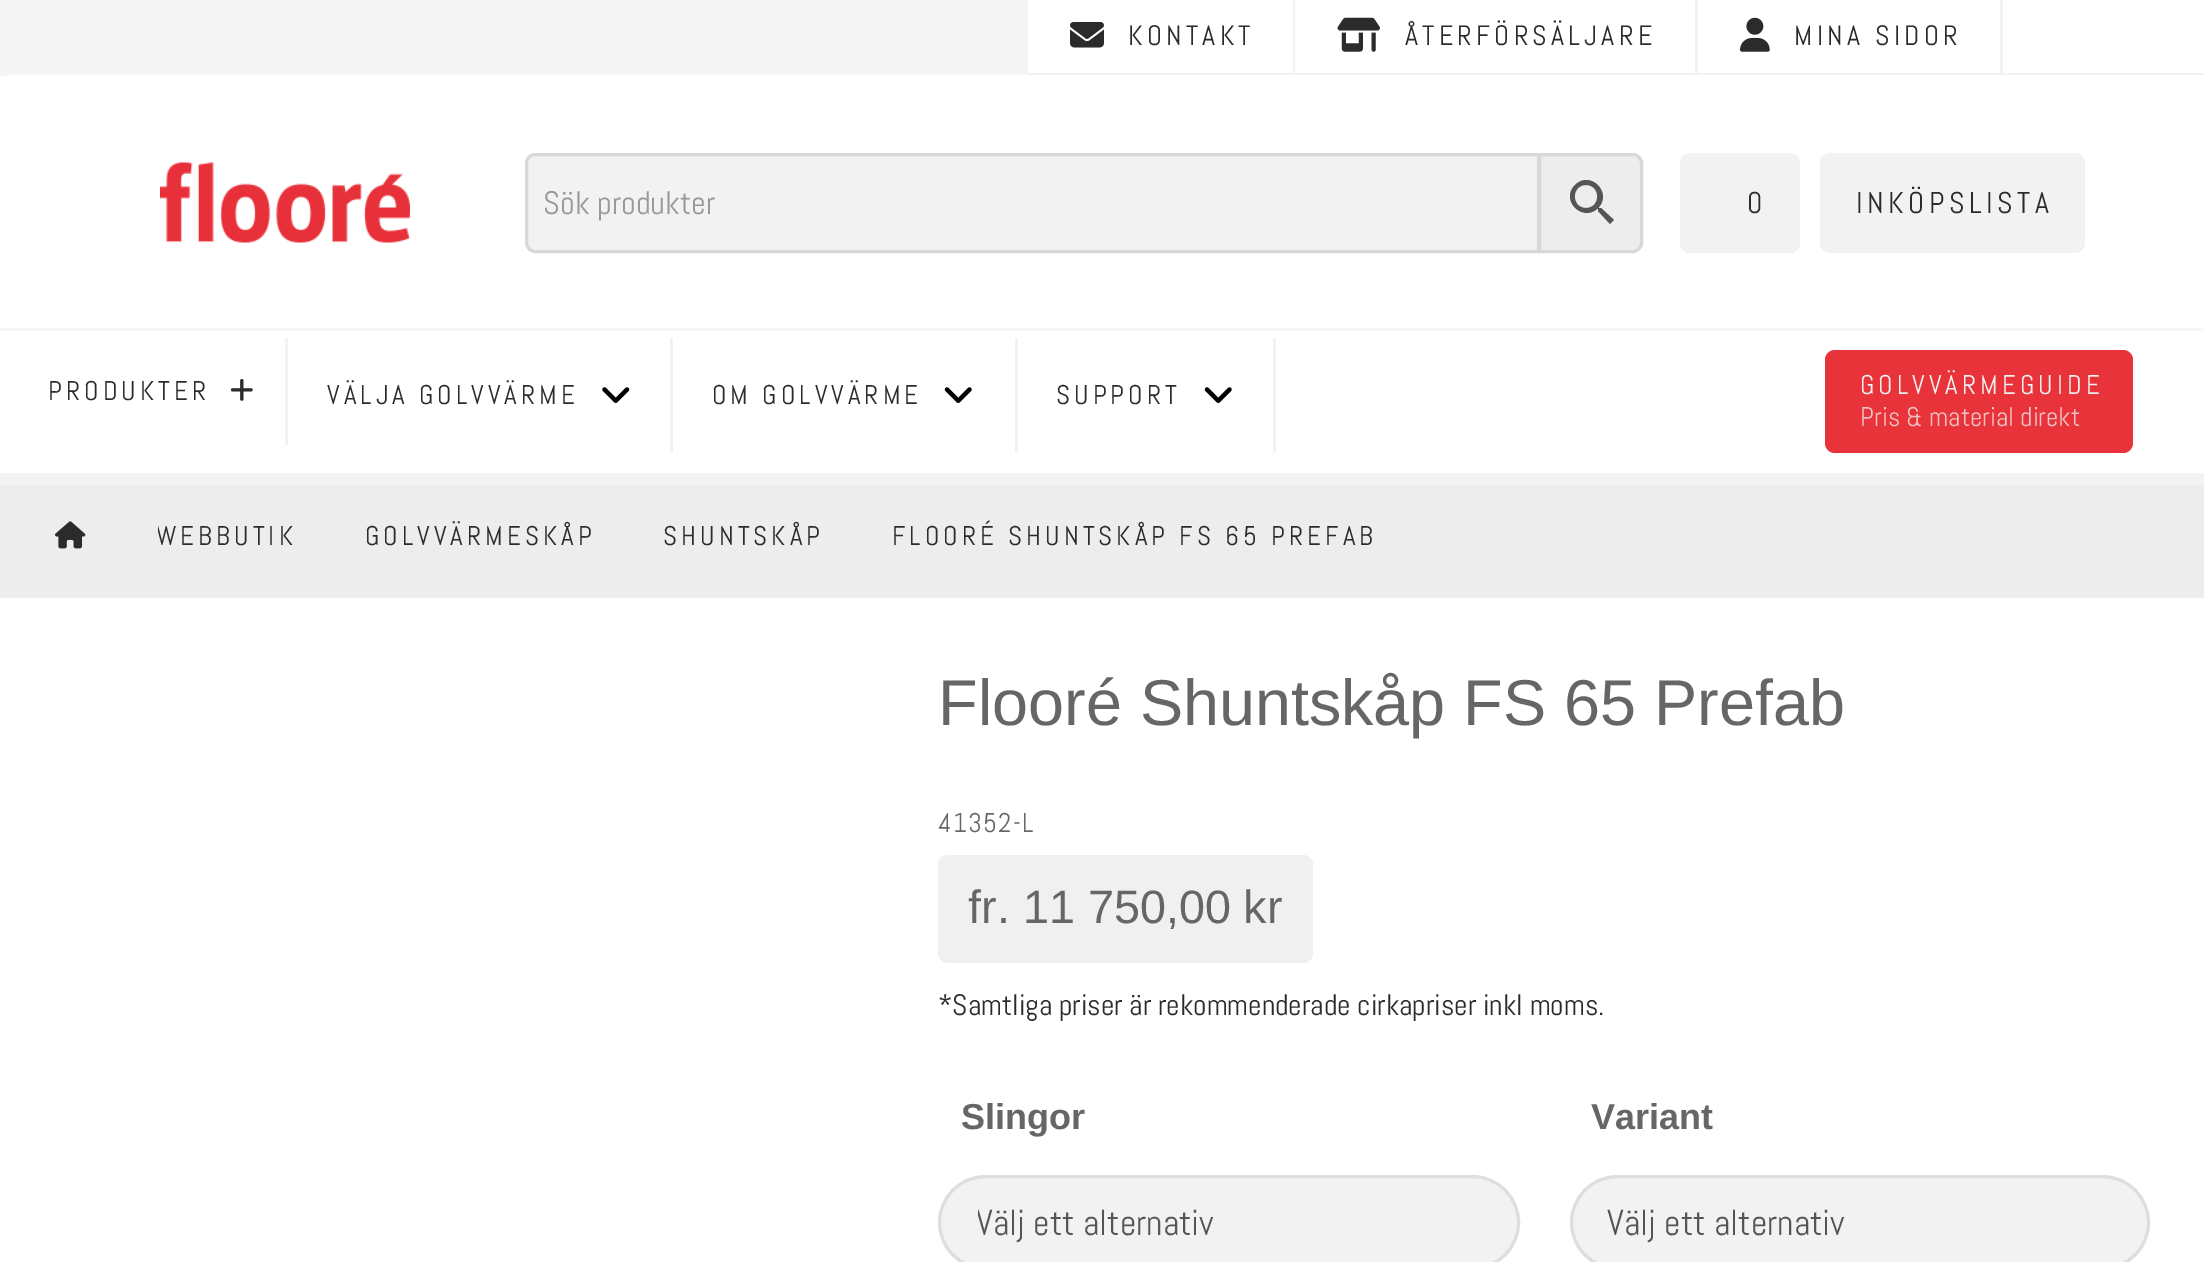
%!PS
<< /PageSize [2204 1262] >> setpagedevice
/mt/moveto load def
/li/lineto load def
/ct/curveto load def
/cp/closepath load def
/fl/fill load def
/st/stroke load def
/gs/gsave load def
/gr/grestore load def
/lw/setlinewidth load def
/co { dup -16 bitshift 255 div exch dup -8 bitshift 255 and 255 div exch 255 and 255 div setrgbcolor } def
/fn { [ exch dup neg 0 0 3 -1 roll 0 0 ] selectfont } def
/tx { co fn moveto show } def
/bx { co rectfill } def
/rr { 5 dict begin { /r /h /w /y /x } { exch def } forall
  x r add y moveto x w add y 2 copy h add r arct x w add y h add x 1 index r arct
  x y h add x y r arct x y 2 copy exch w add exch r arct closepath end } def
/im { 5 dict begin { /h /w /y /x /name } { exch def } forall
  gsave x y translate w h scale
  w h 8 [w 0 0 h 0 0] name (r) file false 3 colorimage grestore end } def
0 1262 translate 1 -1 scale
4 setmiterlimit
0 0 2204 1262 16#FFFFFF bx
0 0 1028 73 16#F4F4F4 bx
0 73 1028 3 16#F6F6F6 bx
1293 0 2 75 16#F2F2F2 bx
1028 73 267 2 16#F2F2F2 bx
(media/1.raw) 1070 22 34 26 im
1695 0 3 75 16#F2F2F2 bx
1295 73 403 2 16#F2F2F2 bx
(media/2.raw) 1337 17 43 35 im
2000 0 3 75 16#F2F2F2 bx
1698 73 506 2 16#F2F2F2 bx
(media/3.raw) 1740 17 30 35 im
16#FFFFFF co
10 75 mt 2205 75 li 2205 330 li 0 330 li 0 85 li 0 79.5 4.5 75 10 75 ct cp fl
0 328 2204 3 16#F6F6F6 bx
(media/4.raw) 160 162 250 81 im
16#EDEDED co
1539.5 154.5 mt 1633 154.5 li 1637.5 154.5 1641.5 158.5 1641.5 163 ct 1641.5 243 li 1641.5 247.5 1637.5 251.5 1633 251.5 ct 1539.5 251.5 li cp gs fl gr
16#D8D8D8 co
3 lw
st
16#F2F2F2 co
535 154.5 mt 1538.5 154.5 li 1538.5 251.5 li 535 251.5 li 530.5 251.5 526.5 247.5 526.5 243 ct 526.5 163 li 526.5 158.5 530.5 154.5 535 154.5 ct cp gs fl gr
16#D8D8D8 co
st
16#555555 co
1601 208 mt 1599 208 li 1599 207 li 1612 192 1590 170 1575 185 ct 1560 200 1582 222 1597 209 ct 1598 209 li 1598 211 li 1610 224 li 1614 220 li cp 1586 208 mt 1571 208 1571 185 1586 185 ct 1601 185 1601 208 1586 208 ct cp fl
16#F2F2F2 co
1680 153 120 100 10 rr fl
1820 153 265 100 10 rr fl
0 473 2204 12 16#F2F2F2 bx
285 338 3 107 16#F2F2F2 bx
(media/5.raw) 230 378 23 23 im
670 338 3 115 16#F2F2F2 bx
(media/6.raw) 602 387 28 16 im
1015 338 3 115 16#F2F2F2 bx
(media/7.raw) 944 387 28 16 im
1273 338 3 115 16#F2F2F2 bx
(media/7.raw) 1204 387 28 16 im
16#E73339 co
1825 350 308 103 10 rr fl
0 485 2204 113 16#EDEDED bx
(media/8.raw) 55 521 31 28 im
16#F0F0F0 co
938 855 375 108 10 rr fl
16#F2F2F2 co
939.5 1176.5 579 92 46 rr gs fl gr
16#DEDEDE co
st
16#F2F2F2 co
1571.5 1176.5 577 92 46 rr gs fl gr
16#DEDEDE co
st
/Abel-Regular 28 fn
16#2B2B2B co
1128 45 mt 4.25 0 (KONTAKT) ashow
1405 45 mt 4.25 0 (ÅTERFÖRSÄLJARE) ashow
1794 45 mt 4.25 0 (MINA SIDOR) ashow
(Sök produkter) 543 214 /Abel-Regular 32.5 16#999999 tx
/Abel-Regular 30 fn
16#2B2B2B co
1747 213 mt 4.5 0 (0) ashow
1856 213 mt 4.5 0 (INKÖPSLISTA) ashow
/Abel-Regular 27 fn
48 400 mt 4.05 0 (PRODUKTER) ashow
327 404 mt 4.05 0 (VÄLJA GOLVVÄRME) ashow
712 404 mt 4.05 0 (OM GOLVVÄRME) ashow
1056 404 mt 4.05 0 (SUPPORT) ashow
16#F2F2F2 co
1860 394 mt 4.05 0 (GOLVVÄRMEGUIDE) ashow
(Pris & material direkt) 1860 426 /Abel-Regular 27 16#EFC2C4 tx
gs
158 518 140 35 rectclip
16#2B2B2B co
156 545 mt 4.05 0 (WEBBUTIK) ashow
gr
16#2B2B2B co
365 545 mt 4.05 0 (GOLVVÄRMESKÅP) ashow
663 545 mt 4.05 0 (SHUNTSKÅP) ashow
892 545 mt 4.05 0 (FLOORÉ SHUNTSKÅP FS 65 PREFAB) ashow
(Flooré Shuntskåp FS 65 Prefab) 938 725 /LiberationSans-Regular 64.75 16#666666 tx
/Abel-Regular 27 fn
938 832 mt 1.25 0 (41352-L) ashow
(fr. 11 750,00 kr) 968 923 /LiberationSans-Regular 46.75 16#666666 tx
(*Samtliga priser är rekommenderade cirkapriser inkl moms.) 938 1015 /Abel-Regular 29.5 16#2B2B2B tx
(Slingor) 961 1129 /LiberationSans-Bold 36 16#666666 tx
gs
978 1200 502 45 rectclip
(Välj ett alternativ) 976 1235 /Abel-Regular 36 16#555555 tx
gr
(Variant) 1591 1129 /LiberationSans-Bold 36 16#666666 tx
(Välj ett alternativ) 1607 1235 /Abel-Regular 36 16#555555 tx
showpage
